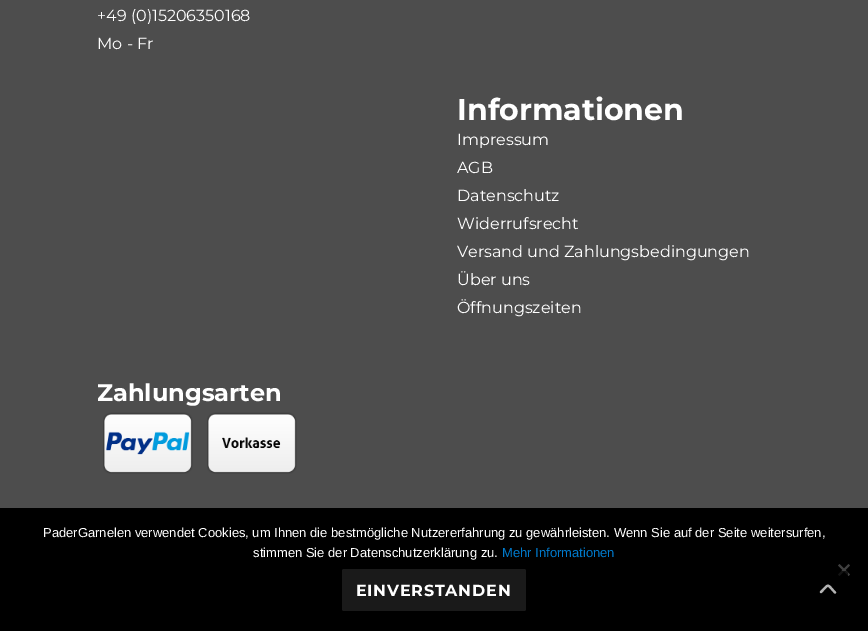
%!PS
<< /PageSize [868 631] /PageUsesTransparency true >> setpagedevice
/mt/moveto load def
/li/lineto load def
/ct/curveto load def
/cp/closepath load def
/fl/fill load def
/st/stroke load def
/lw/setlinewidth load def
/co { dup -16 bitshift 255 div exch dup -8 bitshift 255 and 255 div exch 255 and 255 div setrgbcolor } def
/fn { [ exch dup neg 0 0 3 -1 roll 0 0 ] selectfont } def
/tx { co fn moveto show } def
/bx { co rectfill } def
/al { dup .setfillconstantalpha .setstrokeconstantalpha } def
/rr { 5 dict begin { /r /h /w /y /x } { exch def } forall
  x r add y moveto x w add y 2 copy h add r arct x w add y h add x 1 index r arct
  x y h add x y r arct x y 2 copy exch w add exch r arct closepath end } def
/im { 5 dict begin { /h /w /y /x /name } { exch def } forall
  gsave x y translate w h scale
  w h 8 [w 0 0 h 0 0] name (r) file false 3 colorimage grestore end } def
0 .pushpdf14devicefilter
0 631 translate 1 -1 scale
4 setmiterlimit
0 0 868 631 16#4D4D4D bx
(media/1.raw) 103 412 90 62 im
(media/2.raw) 207 412 90 62 im
0 508 868 123 16#000000 bx
16#404040 co
848.5 564 mt 850 565.5 li 839.5 576 li 838 574.5 li cp fl
838 565.5 mt 839.5 564 li 850 574.5 li 848.5 576 li cp fl
16#1A1A1A co
342 569 184 42 2 rr fl
0.7 al
16#000000 co
808 571 40 40 3 rr fl
1 al
16#B3B3B3 co
2.2 lw
1 setlinecap
2 setlinejoin
835 592.5 mt 826.5 583.5 829.5 583.5 821 592 ct st
(+49 \(0\)15206350168) 97 21 /Montserrat-Regular 16 16#FFFFFF tx
(Mo - Fr) 97 49 /Montserrat-Regular 16 16#FFFFFF tx
(Informationen) 457 120 /Montserrat-Bold 30 16#FFFFFF tx
(Impressum) 457 145 /Montserrat-Regular 16 16#FFFFFF tx
(AGB) 457 173 /Montserrat-Regular 16 16#FFFFFF tx
(Datenschutz) 457 201 /Montserrat-Regular 16 16#FFFFFF tx
(Widerrufsrecht) 457 229 /Montserrat-Regular 16 16#FFFFFF tx
(Versand und Zahlungsbedingungen) 457 257 /Montserrat-Regular 16 16#FFFFFF tx
(Über uns) 457 285 /Montserrat-Regular 16 16#FFFFFF tx
(Öffnungszeiten) 457 313 /Montserrat-Regular 16 16#FFFFFF tx
(Zahlungsarten) 97 401 /Montserrat-Bold 24 16#FFFFFF tx
(PaderGarnelen verwendet Cookies, um Ihnen die bestmögliche Nutzererfahrung zu gewährleisten. Wenn Sie auf der Seite weitersurfen,) 43 537 /LiberationSans-Regular 13 16#FFFFFF tx
(stimmen Sie der Datenschutzerklärung zu.) 253 557 /LiberationSans-Regular 13 16#FFFFFF tx
(Mehr Informationen) 502 557 /LiberationSans-Regular 13 16#007ACC tx
/Montserrat-Bold 16 fn
16#FFFFFF co
356 596 mt .75 0 (EINVERSTANDEN) ashow
.poppdf14devicefilter showpage
